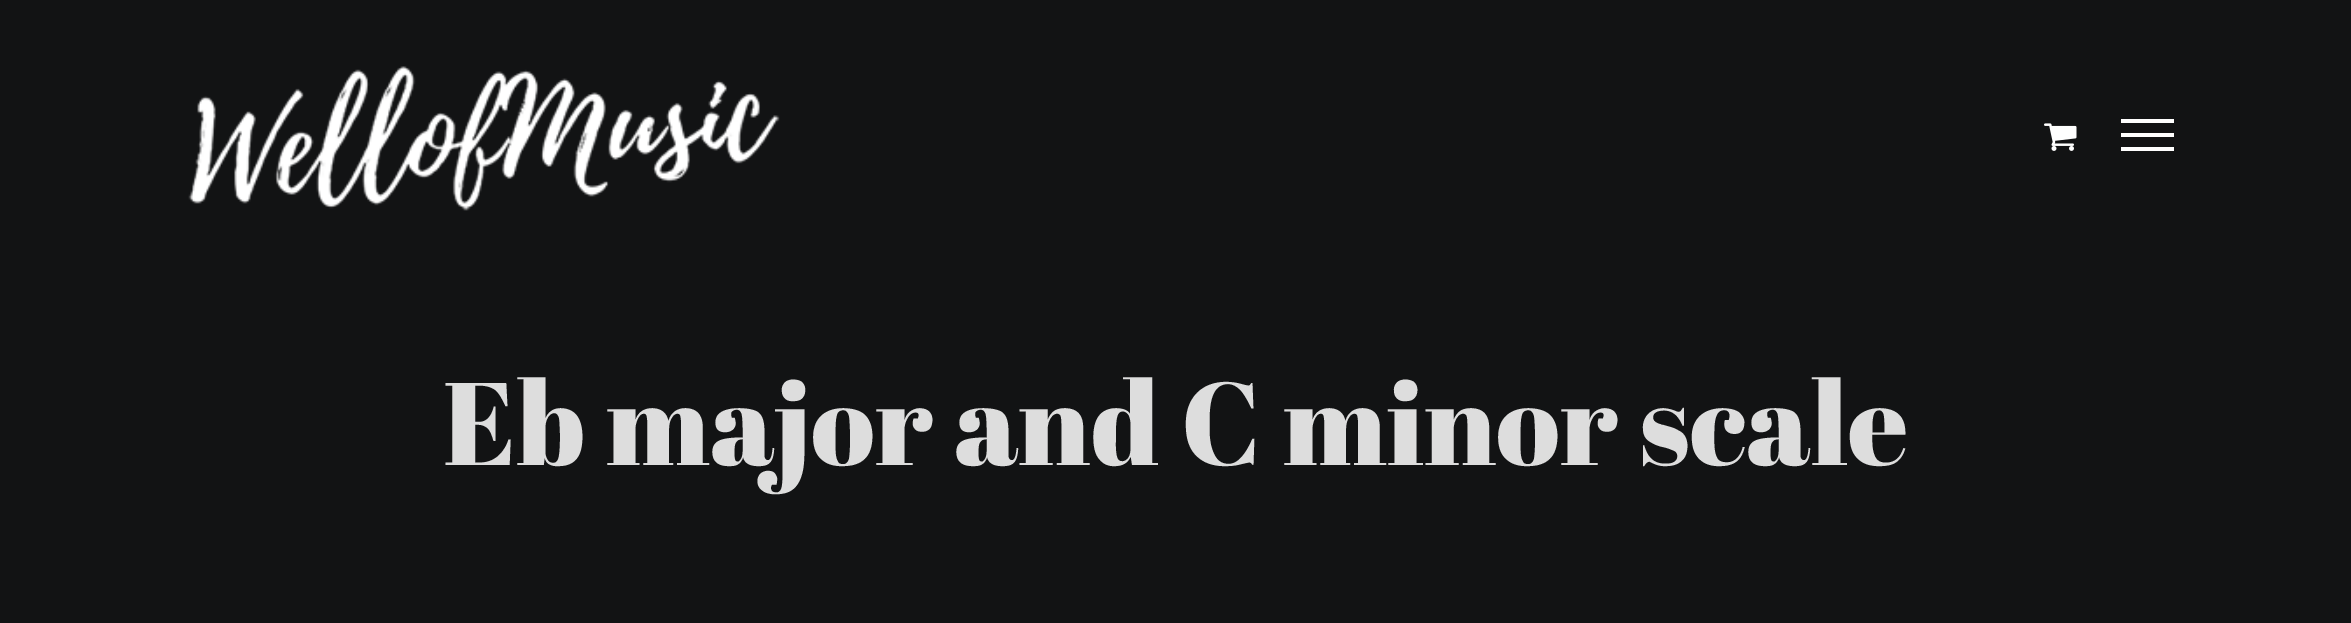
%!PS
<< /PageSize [2351 623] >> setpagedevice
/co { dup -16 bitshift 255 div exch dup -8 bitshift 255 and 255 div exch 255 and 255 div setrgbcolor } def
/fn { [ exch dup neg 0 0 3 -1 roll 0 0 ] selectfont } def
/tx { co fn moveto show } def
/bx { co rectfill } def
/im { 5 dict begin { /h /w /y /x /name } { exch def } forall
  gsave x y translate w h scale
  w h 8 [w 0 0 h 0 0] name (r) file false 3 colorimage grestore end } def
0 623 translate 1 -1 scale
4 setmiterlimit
0 0 2351 623 16#121314 bx
(media/1.raw) 188 66 592 145 im
(media/2.raw) 2044 123 33 28 im
2121 119 53 4 16#FFFFFF bx
2121 133 53 4 16#FFFFFF bx
2121 147 53 4 16#FFFFFF bx
(Eb major and C minor scale) 443 465 /AbrilFatface-Regular 117.25 16#DDDDDD tx
showpage
